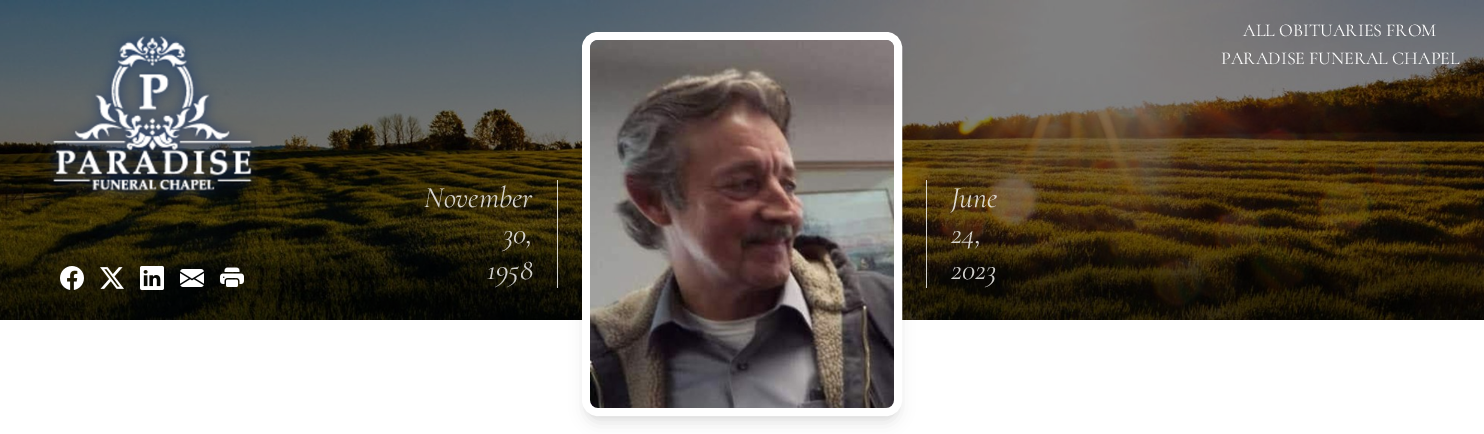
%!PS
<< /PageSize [1484 434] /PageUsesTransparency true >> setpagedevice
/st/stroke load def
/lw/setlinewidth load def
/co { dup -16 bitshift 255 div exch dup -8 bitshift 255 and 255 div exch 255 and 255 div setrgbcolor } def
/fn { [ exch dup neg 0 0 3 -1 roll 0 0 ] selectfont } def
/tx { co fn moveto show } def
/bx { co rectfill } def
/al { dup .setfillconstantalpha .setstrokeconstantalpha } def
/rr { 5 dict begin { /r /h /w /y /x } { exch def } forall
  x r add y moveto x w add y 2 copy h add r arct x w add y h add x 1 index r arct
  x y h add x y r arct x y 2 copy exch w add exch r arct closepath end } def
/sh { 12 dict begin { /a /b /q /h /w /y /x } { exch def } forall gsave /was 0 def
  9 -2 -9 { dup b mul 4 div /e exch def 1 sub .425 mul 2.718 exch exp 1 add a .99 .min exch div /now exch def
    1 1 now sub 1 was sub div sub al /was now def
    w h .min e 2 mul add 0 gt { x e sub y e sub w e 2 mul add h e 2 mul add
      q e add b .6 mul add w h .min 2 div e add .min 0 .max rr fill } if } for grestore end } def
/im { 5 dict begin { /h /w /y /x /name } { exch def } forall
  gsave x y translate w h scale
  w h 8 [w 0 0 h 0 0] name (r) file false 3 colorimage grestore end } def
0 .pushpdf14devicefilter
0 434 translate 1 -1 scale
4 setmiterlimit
0 0 1484 434 16#FFFFFF bx
(media/1.raw) 0 0 1484 320 im
(media/2.raw) 46 31 212 169 im
(media/3.raw) 60 266 24 24 im
(media/4.raw) 100 267 24 22 im
(media/5.raw) 140 266 24 24 im
(media/6.raw) 180 269 24 18 im
(media/7.raw) 220 267 24 20 im
0.8 al
557 180 1 108 16#FFFFFF bx
1 al
16#000000 co
586 40 312 376 12 3 .1 sh
585 45 314 378 13 7.5 .1 sh
16#FFFFFF co
8 lw
586 36 312 376 12 rr st
(media/8.raw) 590 40 304 368 im
0.8 al
926 180 1 108 16#FFFFFF bx
1 al
(ALL OBITUARIES FROM) 1243 36 /Cormorant-Regular 18 16#FFFFFF tx
(PARADISE FUNERAL CHAPEL) 1221 64 /Cormorant-Regular 18 16#FFFFFF tx
(November) 424 207 /Cormorant-Italic 30 16#D7D4CD tx
(30,) 503 243 /Cormorant-Italic 30 16#D7D4CD tx
(1958) 487 279 /Cormorant-Italic 30 16#D1D0CD tx
(June) 951 207 /Cormorant-Italic 30 16#DED9D0 tx
(24,) 951 243 /Cormorant-Italic 30 16#D7D4CD tx
(2023) 951 279 /Cormorant-Italic 30 16#D1D0CD tx
.poppdf14devicefilter showpage
